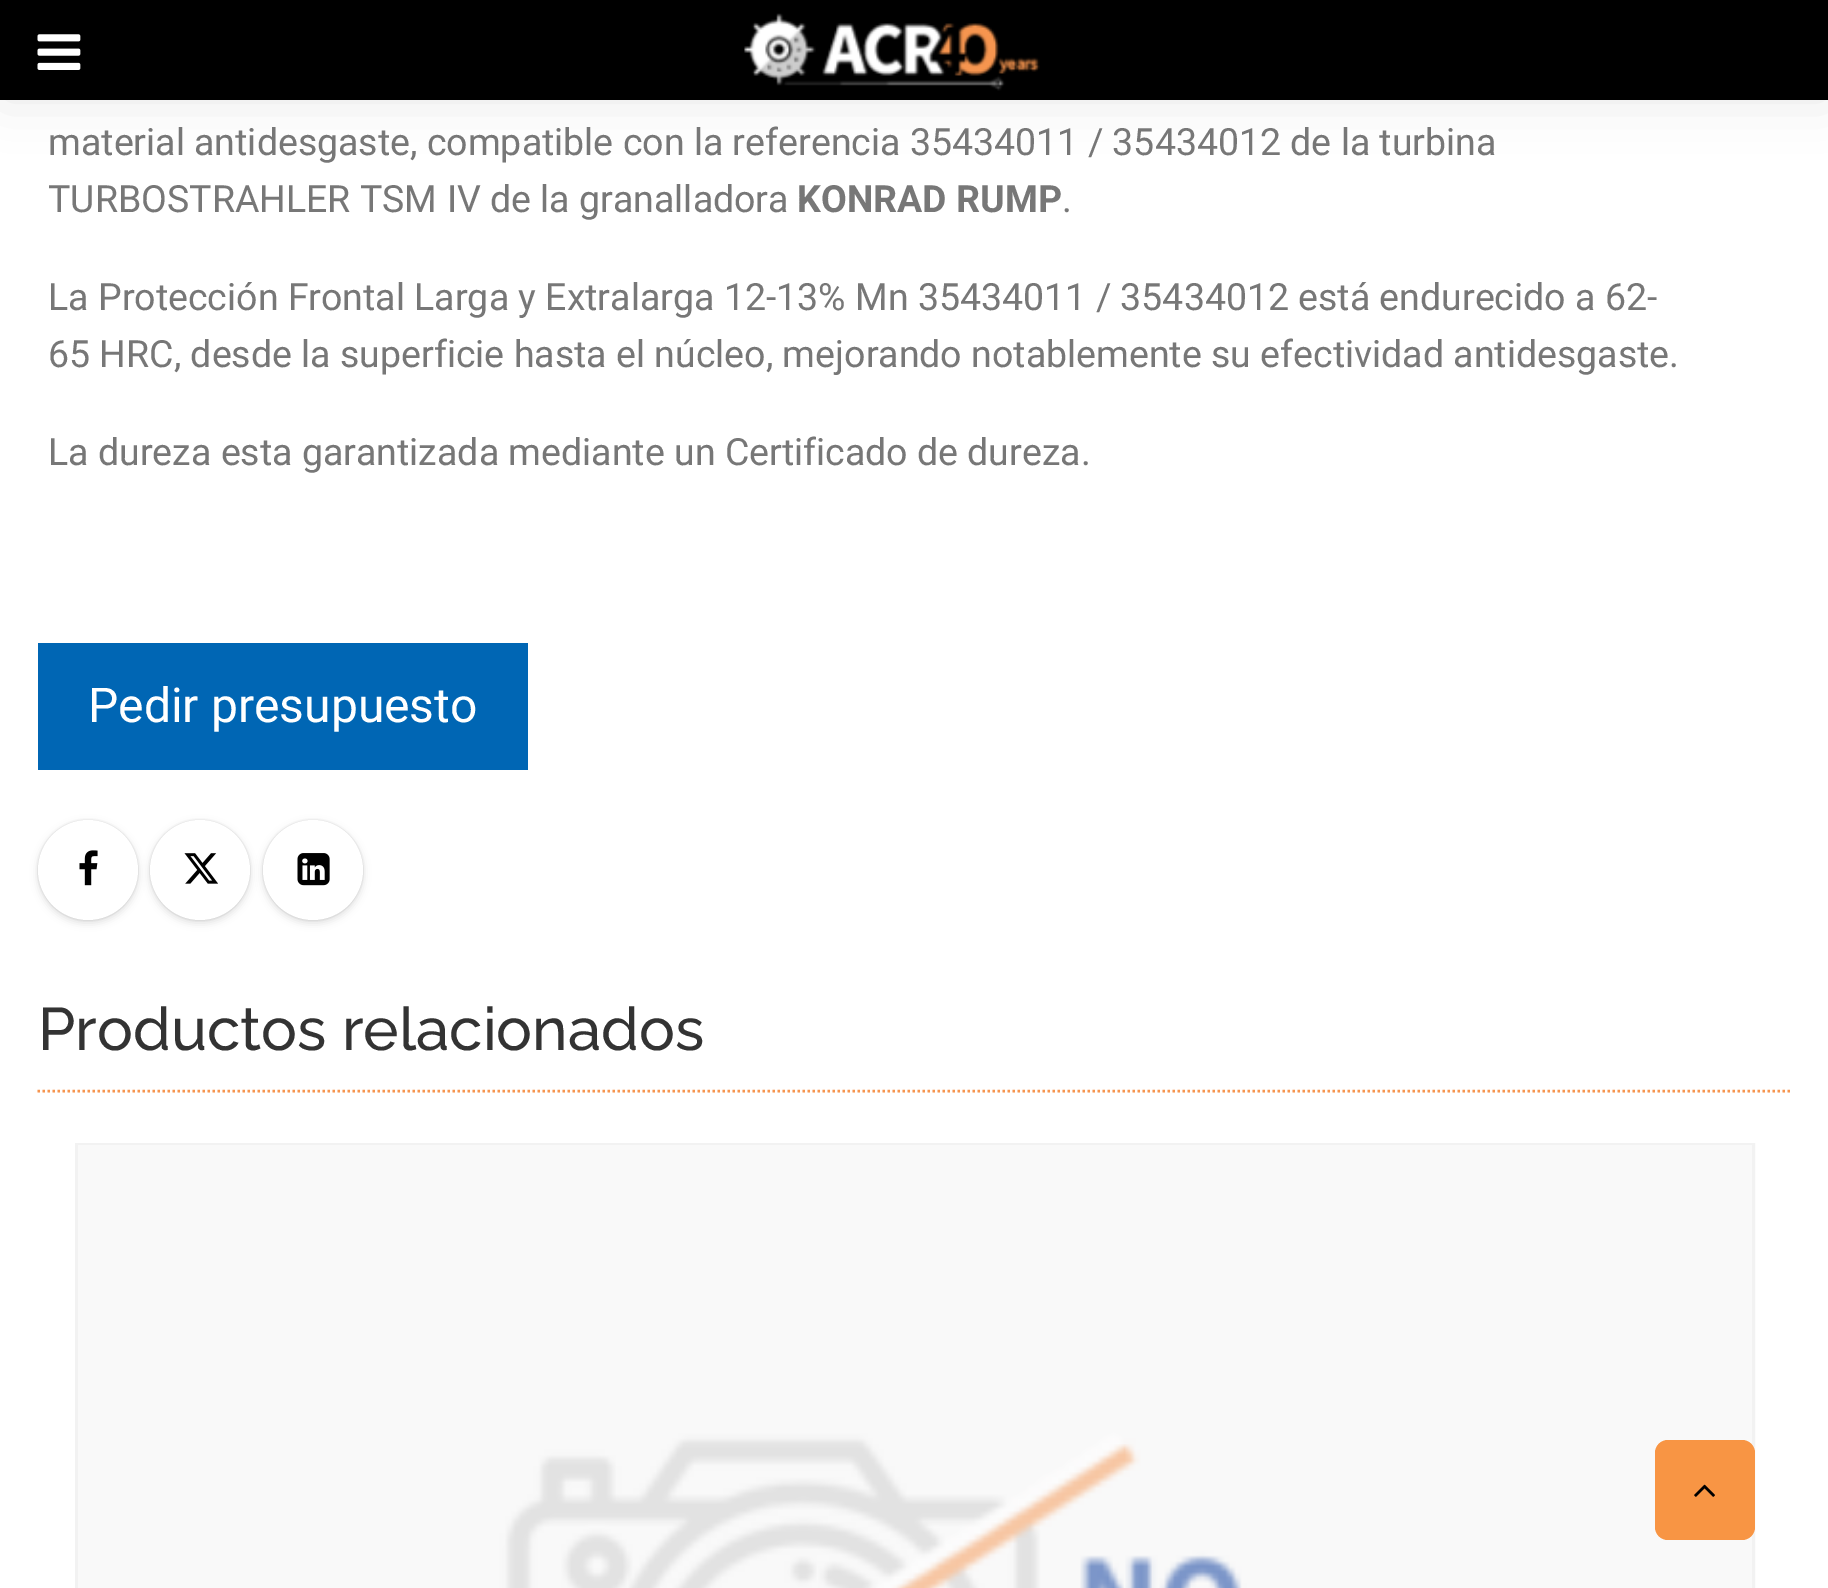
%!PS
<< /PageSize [1828 1588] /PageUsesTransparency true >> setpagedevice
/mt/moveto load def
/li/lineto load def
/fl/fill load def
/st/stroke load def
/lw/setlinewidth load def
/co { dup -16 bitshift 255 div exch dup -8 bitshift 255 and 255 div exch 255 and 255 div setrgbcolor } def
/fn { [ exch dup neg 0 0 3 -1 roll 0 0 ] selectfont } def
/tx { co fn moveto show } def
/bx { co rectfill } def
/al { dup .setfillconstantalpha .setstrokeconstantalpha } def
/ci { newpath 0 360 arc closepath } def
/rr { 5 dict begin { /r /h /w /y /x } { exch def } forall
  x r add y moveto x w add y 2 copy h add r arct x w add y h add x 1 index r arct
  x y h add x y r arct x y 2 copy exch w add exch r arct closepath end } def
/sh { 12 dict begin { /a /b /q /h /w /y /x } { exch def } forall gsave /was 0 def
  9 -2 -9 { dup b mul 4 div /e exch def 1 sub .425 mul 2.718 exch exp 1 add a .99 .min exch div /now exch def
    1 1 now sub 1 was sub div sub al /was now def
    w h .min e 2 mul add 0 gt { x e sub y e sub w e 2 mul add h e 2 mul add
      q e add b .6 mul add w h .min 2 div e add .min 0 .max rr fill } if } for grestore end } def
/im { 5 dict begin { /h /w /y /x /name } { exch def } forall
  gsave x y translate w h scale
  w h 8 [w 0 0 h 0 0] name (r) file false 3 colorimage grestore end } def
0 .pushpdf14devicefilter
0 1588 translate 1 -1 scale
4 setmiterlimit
0 0 1828 1588 16#FFFFFF bx
16#000000 co
3 3 1825 95 0 25 .1 sh
0 0 1828 100 16#000000 bx
(media/1.raw) 37 34 44 36 im
(media/2.raw) 744 13 296 78 im
38 643 490 127 16#0066B4 bx
16#000000 co
38 823 100 100 50 4 .12 sh
38 820 100 100 50 1 .16 sh
16#FFFFFF co
88 870 50 ci fl
(media/3.raw) 79 850 19 36 im
16#000000 co
150 823 100 100 50 4 .12 sh
150 820 100 100 50 1 .16 sh
16#FFFFFF co
200 870 50 ci fl
(media/4.raw) 184 853 34 31 im
16#000000 co
263 823 100 100 50 4 .12 sh
263 820 100 100 50 1 .16 sh
16#FFFFFF co
313 870 50 ci fl
(media/5.raw) 297 853 33 33 im
16#F6954F co
2.5 lw
[2.5 2.5] 0 setdash
37.5 1091 mt 1792.5 1091 li st
16#F2F2F2 co
3 lw
[] 0 setdash
76.5 1144.5 1677 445 rectstroke
(media/6.raw) 78 1145 1674 443 im
16#F89544 co
1655 1440 100 100 13 rr fl
(media/7.raw) 1694 1484 21 13 im
(material antidesgaste, compatible con la referencia 35434011 / 35434012 de la turbina) 48 155 /Roboto-Regular 37.5 16#777777 tx
(TURBOSTRAHLER TSM IV de la granalladora) 48 212 /Roboto-Regular 37.5 16#777777 tx
(KONRAD RUMP) 797 212 /Roboto-Bold 37.5 16#777777 tx
(.) 1062 212 /Roboto-Regular 37.5 16#777777 tx
(La Protección Frontal Larga y Extralarga 12-13% Mn 35434011 / 35434012 está endurecido a 62-) 48 310 /Roboto-Regular 37.5 16#777777 tx
(65 HRC, desde la superficie hasta el núcleo, mejorando notablemente su efectividad antidesgaste.) 48 367 /Roboto-Regular 37.5 16#777777 tx
(La dureza esta garantizada mediante un Certificado de dureza.) 48 465 /Roboto-Regular 37.5 16#777777 tx
(Pedir presupuesto) 88 722 /Roboto-Regular 48 16#FFFFFF tx
(Productos relacionados) 38 1050 /Raleway-Medium 60 16#333333 tx
.poppdf14devicefilter showpage
